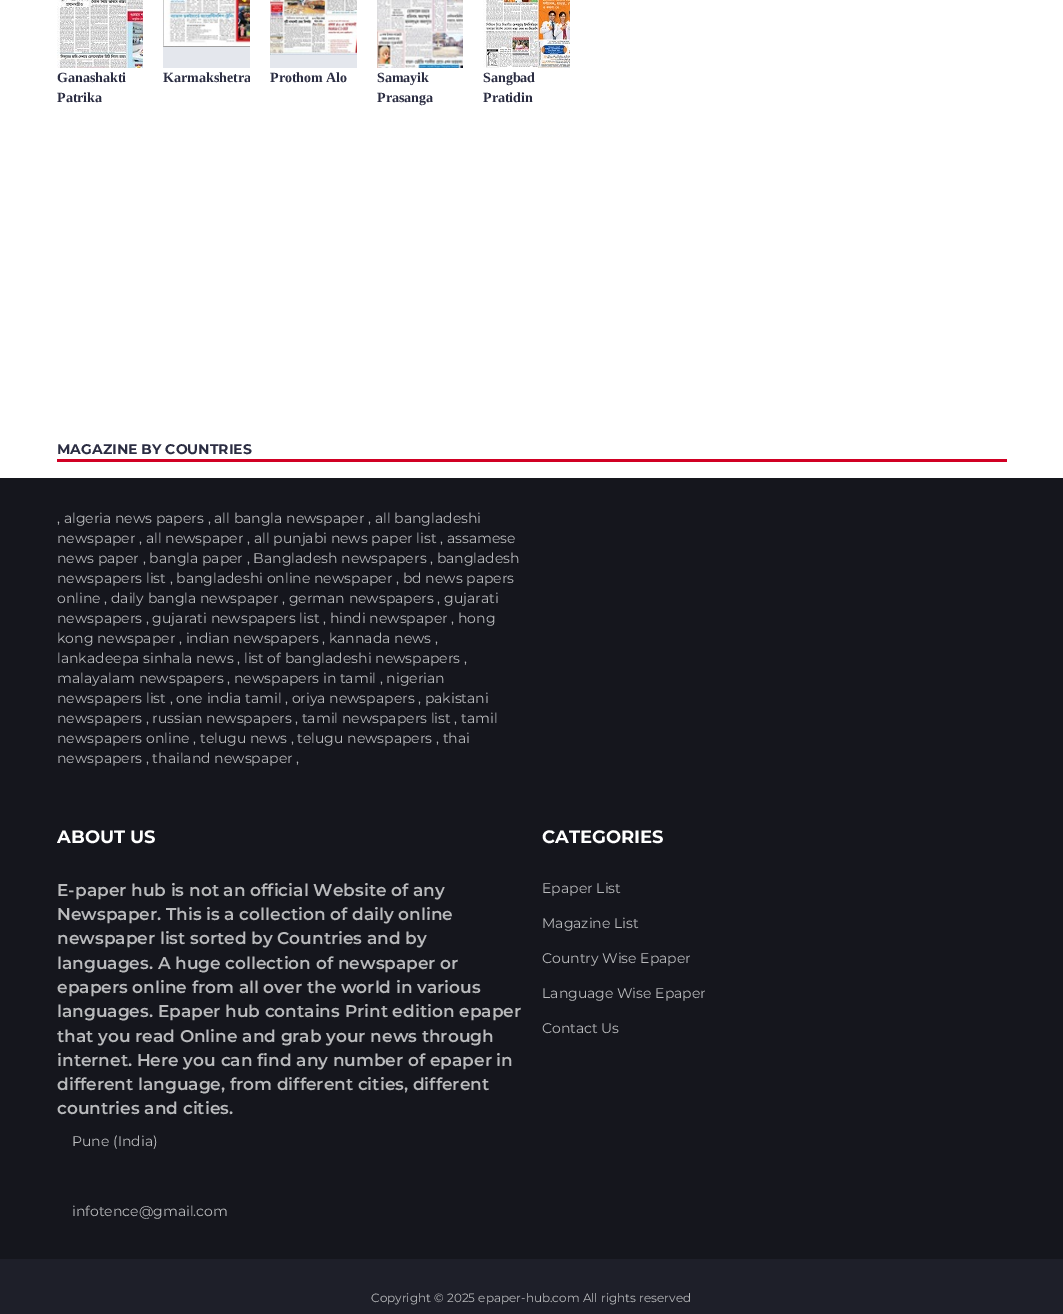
%!PS
<< /PageSize [1063 1314] >> setpagedevice
/gs/gsave load def
/gr/grestore load def
/co { dup -16 bitshift 255 div exch dup -8 bitshift 255 and 255 div exch 255 and 255 div setrgbcolor } def
/fn { [ exch dup neg 0 0 3 -1 roll 0 0 ] selectfont } def
/tx { co fn moveto show } def
/bx { co rectfill } def
/im { 5 dict begin { /h /w /y /x /name } { exch def } forall
  gsave x y translate w h scale
  w h 8 [w 0 0 h 0 0] name (r) file false 3 colorimage grestore end } def
0 1314 translate 1 -1 scale
4 setmiterlimit
0 0 1063 1314 16#FFFFFF bx
(media/1.raw) 57 0 86 68 im
163 47 87 21 16#E4E7ED bx
(media/2.raw) 163 0 87 47 im
270 55 87 13 16#E4E7ED bx
(media/3.raw) 270 0 87 55 im
(media/4.raw) 377 0 86 68 im
(media/5.raw) 483 0 87 68 im
57 459 950 3 16#D10024 bx
0 478 1063 781 16#15161D bx
0 1259 1063 55 16#1E1F29 bx
(Ganashakti) 57 82 /LiberationSerif-Bold 14 16#2B2D42 tx
(Patrika) 57 102 /LiberationSerif-Bold 14 16#2B2D42 tx
gs
163 68 87 57 rectclip
(Karmakshetra) 163 82 /LiberationSerif-Bold 14 16#2B2D42 tx
gr
(Prothom Alo) 270 82 /LiberationSerif-Bold 14 16#2B2D42 tx
(Samayik) 377 82 /LiberationSerif-Bold 14 16#2B2D42 tx
(Prasanga) 377 102 /LiberationSerif-Bold 14 16#2B2D42 tx
(Sangbad) 483 82 /LiberationSerif-Bold 14 16#2B2D42 tx
(Pratidin) 483 102 /LiberationSerif-Bold 14 16#2B2D42 tx
(MAGAZINE BY COUNTRIES) 57 454 /Montserrat-Bold 14 16#2B2D42 tx
(, algeria news papers , all bangla newspaper , all bangladeshi) 57 523 /Montserrat-Regular 14 16#B9BABC tx
(newspaper , all newspaper , all punjabi news paper list , assamese) 57 543 /Montserrat-Regular 14 16#B9BABC tx
(news paper , bangla paper , Bangladesh newspapers , bangladesh) 57 563 /Montserrat-Regular 14 16#B9BABC tx
(newspapers list , bangladeshi online newspaper , bd news papers) 57 583 /Montserrat-Regular 14 16#B9BABC tx
(online , daily bangla newspaper , german newspapers , gujarati) 57 603 /Montserrat-Regular 14 16#B9BABC tx
(newspapers , gujarati newspapers list , hindi newspaper , hong) 57 623 /Montserrat-Regular 14 16#B9BABC tx
(kong newspaper , indian newspapers , kannada news ,) 57 643 /Montserrat-Regular 14 16#B9BABC tx
(lankadeepa sinhala news , list of bangladeshi newspapers ,) 57 663 /Montserrat-Regular 14 16#B9BABC tx
(malayalam newspapers , newspapers in tamil , nigerian) 57 683 /Montserrat-Regular 14 16#B9BABC tx
(newspapers list , one india tamil , oriya newspapers , pakistani) 57 703 /Montserrat-Regular 14 16#B9BABC tx
(newspapers , russian newspapers , tamil newspapers list , tamil) 57 723 /Montserrat-Regular 14 16#B9BABC tx
(newspapers online , telugu news , telugu newspapers , thai) 57 743 /Montserrat-Regular 14 16#B9BABC tx
(newspapers , thailand newspaper ,) 57 763 /Montserrat-Regular 14 16#B9BABC tx
(ABOUT US) 57 843 /Montserrat-Bold 18 16#FFFFFF tx
(E-paper hub is not an official Website of any) 57 896 /Montserrat-SemiBold 17 16#B9BABC tx
(Newspaper. This is a collection of daily online) 57 920 /Montserrat-SemiBold 17 16#B9BABC tx
(newspaper list sorted by Countries and by) 57 944 /Montserrat-SemiBold 17 16#B9BABC tx
(languages. A huge collection of newspaper or) 57 969 /Montserrat-SemiBold 17 16#B9BABC tx
(epapers online from all over the world in various) 57 993 /Montserrat-SemiBold 17 16#B9BABC tx
(languages. Epaper hub contains Print edition epaper) 57 1017 /Montserrat-SemiBold 17 16#B9BABC tx
(that you read Online and grab your news through) 57 1042 /Montserrat-SemiBold 17 16#B9BABC tx
(internet. Here you can find any number of epaper in) 57 1066 /Montserrat-SemiBold 17 16#B9BABC tx
(different language, from different cities, different) 57 1090 /Montserrat-SemiBold 17 16#B9BABC tx
(countries and cities.) 57 1114 /Montserrat-SemiBold 17 16#B9BABC tx
(Pune \(India\)) 72 1146 /Montserrat-Regular 14 16#B9BABC tx
(infotence@gmail.com) 72 1216 /Montserrat-Regular 14 16#B9BABC tx
(CATEGORIES) 542 843 /Montserrat-Bold 18 16#FFFFFF tx
(Epaper List) 542 893 /Montserrat-Regular 14 16#B9BABC tx
(Magazine List) 542 928 /Montserrat-Regular 14 16#B9BABC tx
(Country Wise Epaper) 542 963 /Montserrat-Regular 14 16#B9BABC tx
(Language Wise Epaper) 542 998 /Montserrat-Regular 14 16#B9BABC tx
(Contact Us) 542 1033 /Montserrat-Regular 14 16#B9BABC tx
(Copyright © 2025 epaper-hub.com All rights reserved) 371 1302 /Montserrat-Regular 12 16#B9BABC tx
showpage
